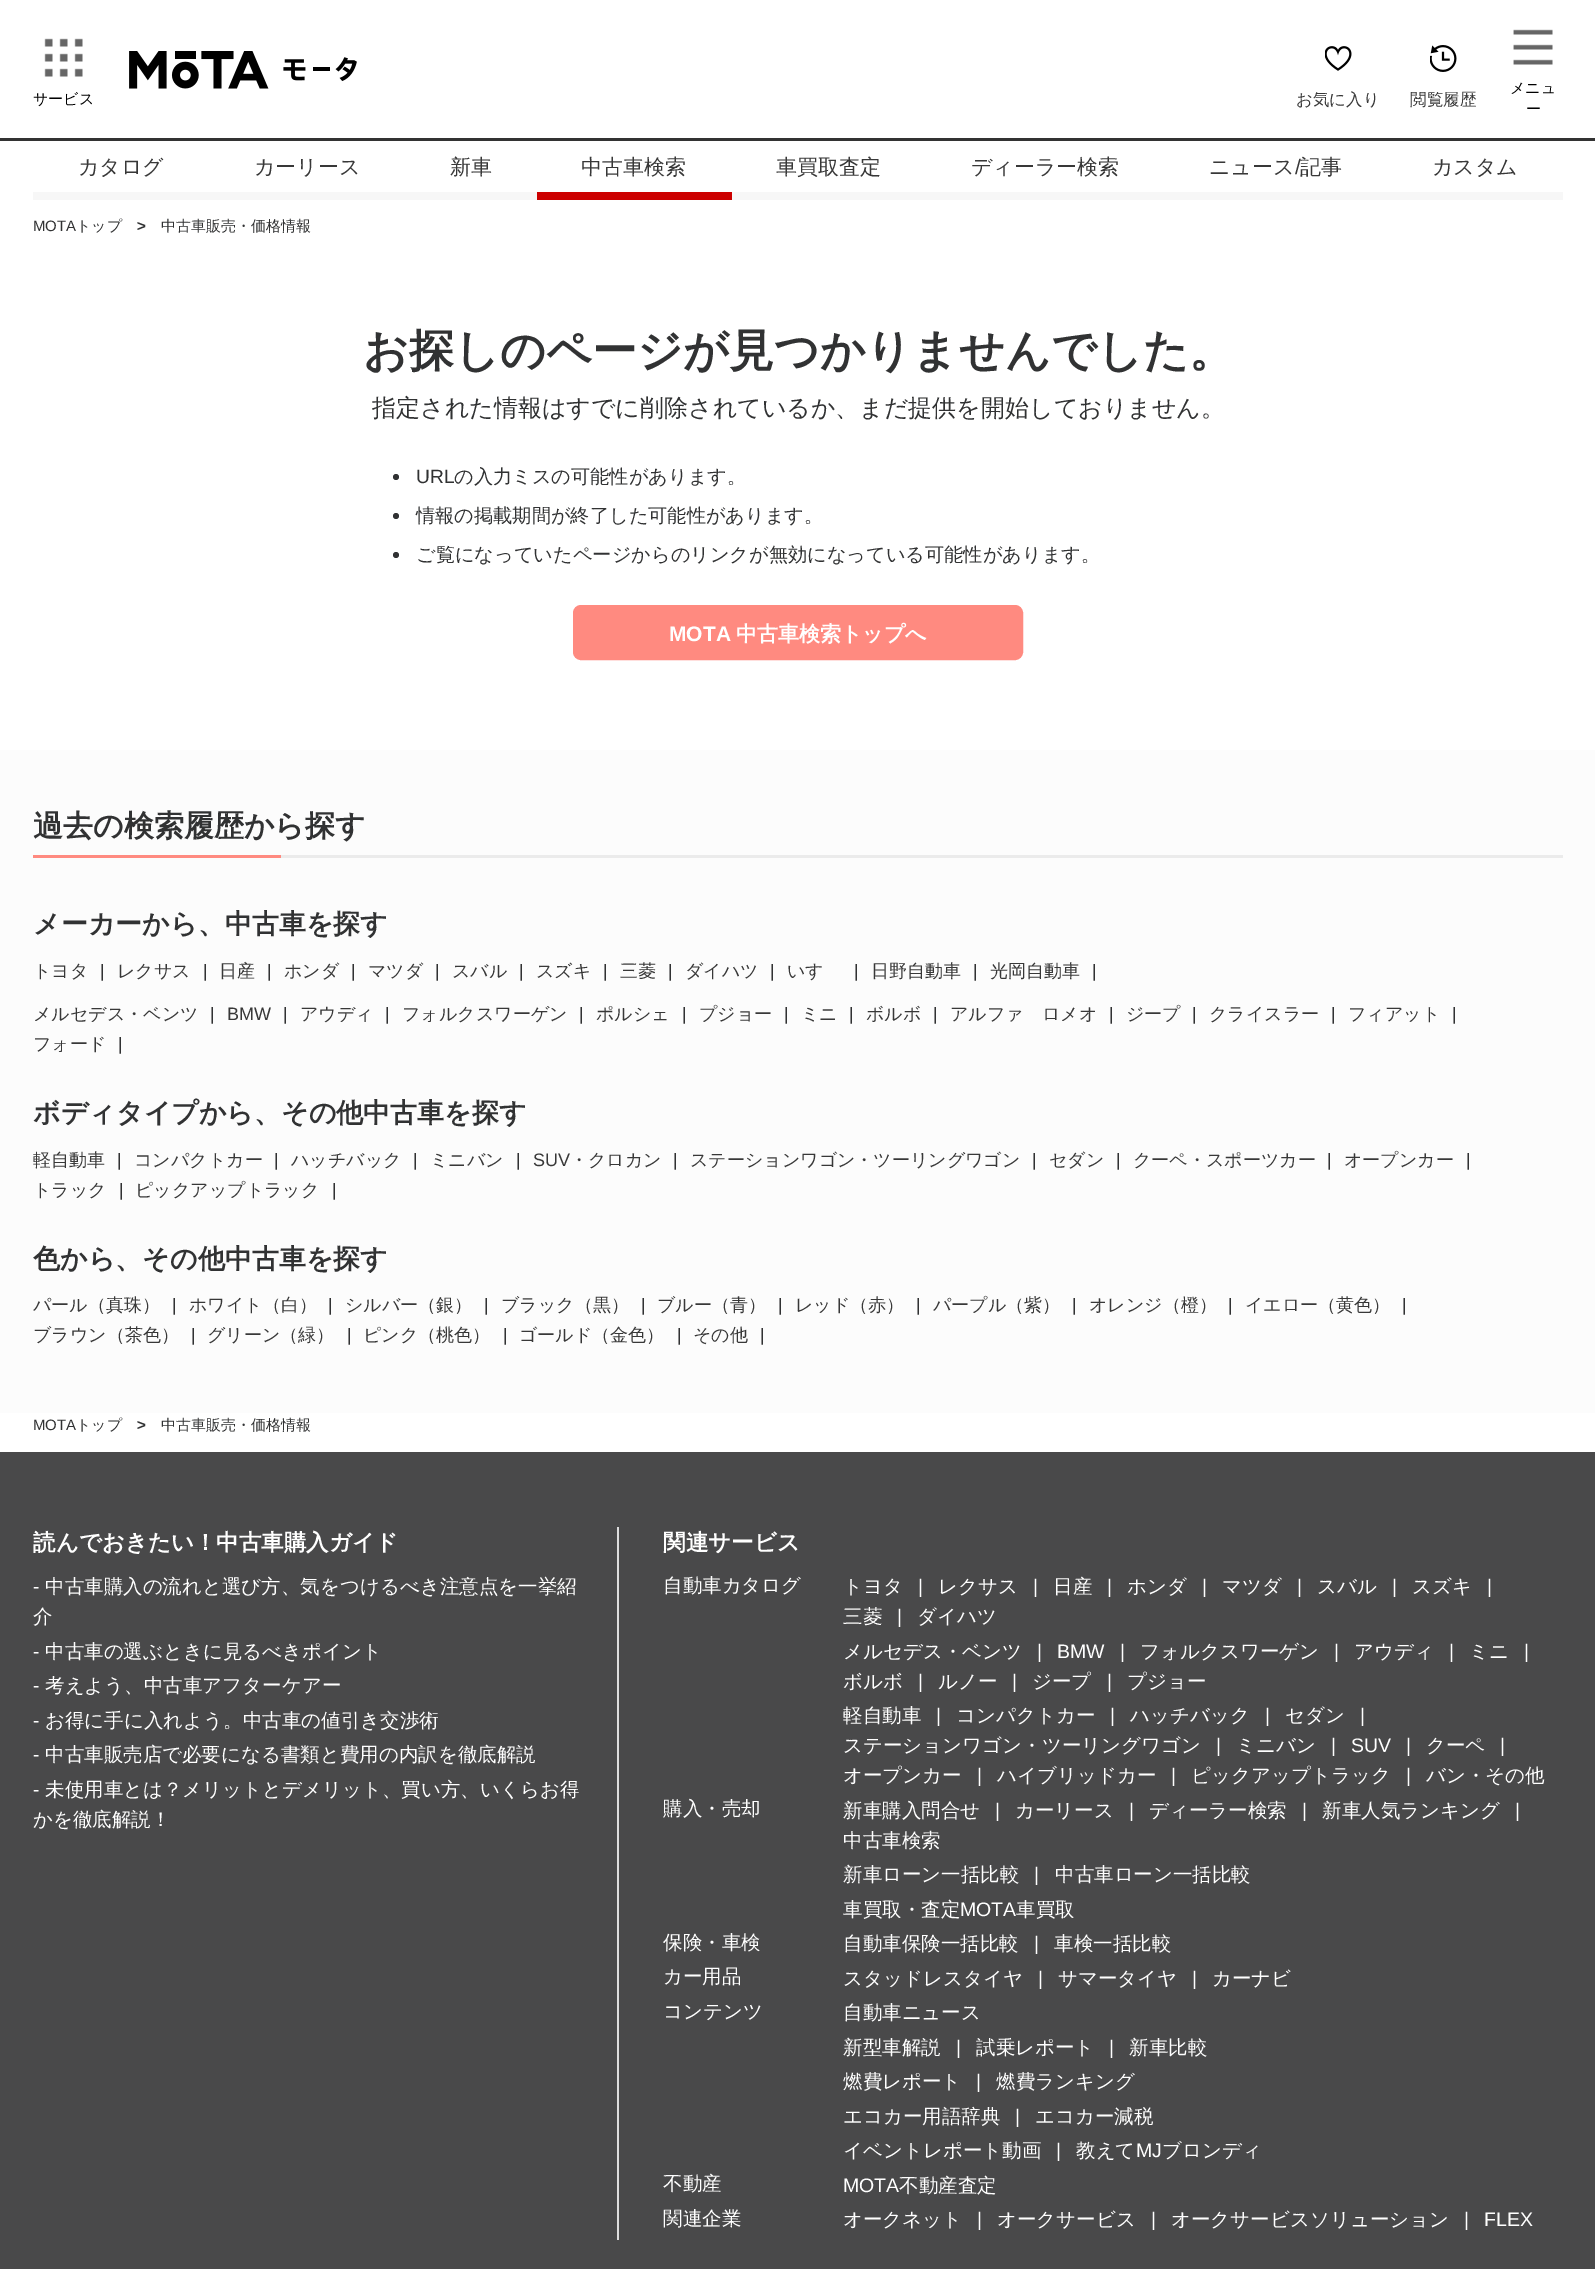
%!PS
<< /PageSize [1595 2269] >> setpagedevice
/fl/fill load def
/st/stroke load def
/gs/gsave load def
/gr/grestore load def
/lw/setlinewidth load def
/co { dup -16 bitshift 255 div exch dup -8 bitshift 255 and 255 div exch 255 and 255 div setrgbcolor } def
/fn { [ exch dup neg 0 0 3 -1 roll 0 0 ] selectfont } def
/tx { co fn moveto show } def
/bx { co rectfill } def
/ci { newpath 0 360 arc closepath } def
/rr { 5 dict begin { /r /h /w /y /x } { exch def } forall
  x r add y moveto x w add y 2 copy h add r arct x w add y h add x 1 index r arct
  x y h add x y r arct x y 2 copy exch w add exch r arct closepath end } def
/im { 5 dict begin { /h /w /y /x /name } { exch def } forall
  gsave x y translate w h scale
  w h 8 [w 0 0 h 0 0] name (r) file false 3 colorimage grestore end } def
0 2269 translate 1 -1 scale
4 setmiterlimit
0 0 1595 2269 16#FFFFFF bx
0 138 1595 3 16#333333 bx
(media/1.raw) 129 51 228 38 im
(media/2.raw) 44 38 39 39 im
(media/3.raw) 1325 46 27 25 im
(media/4.raw) 1430 45 27 27 im
(media/5.raw) 1513 29 40 36 im
33 192 504 8 16#F7F7F7 bx
537 192 195 8 16#CC0000 bx
732 192 831 8 16#F7F7F7 bx
16#313233 co
396 477 3 ci fl
396 516 3 ci fl
396 555 3 ci fl
16#FF8A80 co
574 606 448 53 7 rr gs fl gr
2 lw
st
0 750 1595 663 16#FCFCFC bx
281 855 1282 3 16#EBEBEB bx
33 855 248 3 16#FF8A80 bx
0 1452 1595 817 16#49494A bx
617 1527 2 713 16#DDDDDD bx
(サービス) 33 104 /WenQuanYiZenHei-Medium 15 16#000000 tx
(お気に入り) 1296 105 /WenQuanYiZenHei-Medium 16.5 16#383838 tx
(閲覧履歴) 1410 105 /WenQuanYiZenHei-Medium 16.5 16#383838 tx
(メニュ) 1510 93 /WenQuanYiZenHei-Medium 15 16#000000 tx
(ー) 1526 114 /WenQuanYiZenHei-Medium 15 16#000000 tx
(カタログ) 78 174 /WenQuanYiZenHei-Medium 21 16#383838 tx
(カーリース) 254 174 /WenQuanYiZenHei-Medium 21 16#383838 tx
(新車) 450 174 /WenQuanYiZenHei-Medium 21 16#383838 tx
(中古車検索) 581 174 /WenQuanYiZenHei-Medium 21 16#383838 tx
(車買取査定) 776 174 /WenQuanYiZenHei-Medium 21 16#383838 tx
(ディーラー検索) 971 174 /WenQuanYiZenHei-Medium 21 16#383838 tx
(ニュース) 1209 174 /WenQuanYiZenHei-Medium 21 16#383838 tx
(/) 1295 174 /LiberationSans-Regular 21 16#383838 tx
(記事) 1300 174 /WenQuanYiZenHei-Medium 21 16#383838 tx
(カスタム) 1432 174 /WenQuanYiZenHei-Medium 21 16#383838 tx
(MOTA) 33 231 /LiberationSans-Regular 15 16#313233 tx
(トップ) 76 231 /WenQuanYiZenHei-Medium 15 16#313233 tx
(>) 137 231 /LiberationSans-Bold 15 16#313233 tx
(中古車販売・価格情報) 161 231 /WenQuanYiZenHei-Medium 15 16#313233 tx
(お探しのページが見つかりませんでした。) 363 366 /WenQuanYiZenHei-Bold 45 16#313233 tx
(指定された情報はすでに削除されているか、まだ提供を開始しておりません。) 372 416 /WenQuanYiZenHei-Medium 24 16#313233 tx
(URL) 416 483 /LiberationSans-Regular 19.2 16#313233 tx
(の入力ミスの可能性があります。) 454 483 /WenQuanYiZenHei-Medium 19.2 16#313233 tx
(情報の掲載期間が終了した可能性があります。) 416 522 /WenQuanYiZenHei-Medium 19.2 16#313233 tx
(ご覧になっていたページからのリンクが無効になっている可能性があります。) 416 561 /WenQuanYiZenHei-Medium 19.2 16#313233 tx
(MOTA) 669 641 /LiberationSans-Bold 21 16#FFFFFF tx
(中古車検索トップへ) 736 641 /WenQuanYiZenHei-Bold 21 16#FFFFFF tx
(過去の検索履歴から探す) 33 836 /WenQuanYiZenHei-Bold 30 16#313233 tx
(メーカーから、中古車を探す) 33 933 /WenQuanYiZenHei-Bold 27 16#313233 tx
(トヨタ) 33 977 /WenQuanYiZenHei-Medium 18 16#383838 tx
(|) 100 977 /LiberationSans-Regular 18 16#313233 tx
(レクサス) 117 977 /WenQuanYiZenHei-Medium 18 16#383838 tx
(|) 203 977 /LiberationSans-Regular 18 16#313233 tx
(日産) 219 977 /WenQuanYiZenHei-Medium 18 16#383838 tx
(|) 267 977 /LiberationSans-Regular 18 16#313233 tx
(ホンダ) 284 977 /WenQuanYiZenHei-Medium 18 16#383838 tx
(|) 351 977 /LiberationSans-Regular 18 16#313233 tx
(マツダ) 368 977 /WenQuanYiZenHei-Medium 18 16#383838 tx
(|) 435 977 /LiberationSans-Regular 18 16#313233 tx
(スバル) 452 977 /WenQuanYiZenHei-Medium 18 16#383838 tx
(|) 519 977 /LiberationSans-Regular 18 16#313233 tx
(スズキ) 536 977 /WenQuanYiZenHei-Medium 18 16#383838 tx
(|) 603 977 /LiberationSans-Regular 18 16#313233 tx
(三菱) 620 977 /WenQuanYiZenHei-Medium 18 16#383838 tx
(|) 668 977 /LiberationSans-Regular 18 16#313233 tx
(ダイハツ) 685 977 /WenQuanYiZenHei-Medium 18 16#383838 tx
(|) 770 977 /LiberationSans-Regular 18 16#313233 tx
(いすゞ) 787 977 /WenQuanYiZenHei-Medium 18 16#383838 tx
(|) 854 977 /LiberationSans-Regular 18 16#313233 tx
(日野自動車) 871 977 /WenQuanYiZenHei-Medium 18 16#383838 tx
(|) 973 977 /LiberationSans-Regular 18 16#313233 tx
(光岡自動車) 990 977 /WenQuanYiZenHei-Medium 18 16#383838 tx
(|) 1092 977 /LiberationSans-Regular 18 16#313233 tx
(メルセデス・ベンツ) 33 1020 /WenQuanYiZenHei-Medium 18 16#383838 tx
(|) 210 1020 /LiberationSans-Regular 18 16#313233 tx
(BMW) 227 1020 /LiberationSans-Regular 18 16#383838 tx
(|) 283 1020 /LiberationSans-Regular 18 16#313233 tx
(アウディ) 300 1020 /WenQuanYiZenHei-Medium 18 16#383838 tx
(|) 385 1020 /LiberationSans-Regular 18 16#313233 tx
(フォルクスワーゲン) 402 1020 /WenQuanYiZenHei-Medium 18 16#383838 tx
(|) 579 1020 /LiberationSans-Regular 18 16#313233 tx
(ポルシェ) 596 1020 /WenQuanYiZenHei-Medium 18 16#383838 tx
(|) 682 1020 /LiberationSans-Regular 18 16#313233 tx
(プジョー) 699 1020 /WenQuanYiZenHei-Medium 18 16#383838 tx
(|) 784 1020 /LiberationSans-Regular 18 16#313233 tx
(ミニ) 801 1020 /WenQuanYiZenHei-Medium 18 16#383838 tx
(|) 849 1020 /LiberationSans-Regular 18 16#313233 tx
(ボルボ) 866 1020 /WenQuanYiZenHei-Medium 18 16#383838 tx
(|) 933 1020 /LiberationSans-Regular 18 16#313233 tx
(アルファ　ロメオ) 950 1020 /WenQuanYiZenHei-Medium 18 16#383838 tx
(|) 1109 1020 /LiberationSans-Regular 18 16#313233 tx
(ジープ) 1126 1020 /WenQuanYiZenHei-Medium 18 16#383838 tx
(|) 1192 1020 /LiberationSans-Regular 18 16#313233 tx
(クライスラー) 1209 1020 /WenQuanYiZenHei-Medium 18 16#383838 tx
(|) 1331 1020 /LiberationSans-Regular 18 16#313233 tx
(フィアット) 1348 1020 /WenQuanYiZenHei-Medium 18 16#383838 tx
(|) 1452 1020 /LiberationSans-Regular 18 16#313233 tx
(フォード) 33 1050 /WenQuanYiZenHei-Medium 18 16#383838 tx
(|) 118 1050 /LiberationSans-Regular 18 16#313233 tx
(ボディタイプから、その他中古車を探す) 33 1122 /WenQuanYiZenHei-Bold 27 16#313233 tx
(軽自動車) 33 1166 /WenQuanYiZenHei-Medium 18 16#383838 tx
(|) 117 1166 /LiberationSans-Regular 18 16#313233 tx
(コンパクトカー) 134 1166 /WenQuanYiZenHei-Medium 18 16#383838 tx
(|) 274 1166 /LiberationSans-Regular 18 16#313233 tx
(ハッチバック) 291 1166 /WenQuanYiZenHei-Medium 18 16#383838 tx
(|) 413 1166 /LiberationSans-Regular 18 16#313233 tx
(ミニバン) 430 1166 /WenQuanYiZenHei-Medium 18 16#383838 tx
(|) 516 1166 /LiberationSans-Regular 18 16#313233 tx
(SUV) 533 1166 /LiberationSans-Regular 18 16#383838 tx
(・クロカン) 570 1166 /WenQuanYiZenHei-Medium 18 16#383838 tx
(|) 673 1166 /LiberationSans-Regular 18 16#313233 tx
(ステーションワゴン・ツーリングワゴン) 690 1166 /WenQuanYiZenHei-Medium 18 16#383838 tx
(|) 1032 1166 /LiberationSans-Regular 18 16#313233 tx
(セダン) 1049 1166 /WenQuanYiZenHei-Medium 18 16#383838 tx
(|) 1116 1166 /LiberationSans-Regular 18 16#313233 tx
(クーペ・スポーツカー) 1133 1166 /WenQuanYiZenHei-Medium 18 16#383838 tx
(|) 1327 1166 /LiberationSans-Regular 18 16#313233 tx
(オープンカー) 1344 1166 /WenQuanYiZenHei-Medium 18 16#383838 tx
(|) 1466 1166 /LiberationSans-Regular 18 16#313233 tx
(トラック) 33 1196 /WenQuanYiZenHei-Medium 18 16#383838 tx
(|) 119 1196 /LiberationSans-Regular 18 16#313233 tx
(ピックアップトラック) 135 1196 /WenQuanYiZenHei-Medium 18 16#383838 tx
(|) 332 1196 /LiberationSans-Regular 18 16#313233 tx
(色から、その他中古車を探す) 33 1268 /WenQuanYiZenHei-Bold 27 16#313233 tx
(パール（真珠）) 33 1311 /WenQuanYiZenHei-Medium 18 16#383838 tx
(|) 172 1311 /LiberationSans-Regular 18 16#313233 tx
(ホワイト（白）) 189 1311 /WenQuanYiZenHei-Medium 18 16#383838 tx
(|) 328 1311 /LiberationSans-Regular 18 16#313233 tx
(シルバー（銀）) 345 1311 /WenQuanYiZenHei-Medium 18 16#383838 tx
(|) 484 1311 /LiberationSans-Regular 18 16#313233 tx
(ブラック（黒）) 501 1311 /WenQuanYiZenHei-Medium 18 16#383838 tx
(|) 641 1311 /LiberationSans-Regular 18 16#313233 tx
(ブルー（青）) 657 1311 /WenQuanYiZenHei-Medium 18 16#383838 tx
(|) 778 1311 /LiberationSans-Regular 18 16#313233 tx
(レッド（赤）) 795 1311 /WenQuanYiZenHei-Medium 18 16#383838 tx
(|) 916 1311 /LiberationSans-Regular 18 16#313233 tx
(パープル（紫）) 933 1311 /WenQuanYiZenHei-Medium 18 16#383838 tx
(|) 1072 1311 /LiberationSans-Regular 18 16#313233 tx
(オレンジ（橙）) 1089 1311 /WenQuanYiZenHei-Medium 18 16#383838 tx
(|) 1228 1311 /LiberationSans-Regular 18 16#313233 tx
(イエロー（黄色）) 1245 1311 /WenQuanYiZenHei-Medium 18 16#383838 tx
(|) 1402 1311 /LiberationSans-Regular 18 16#313233 tx
(ブラウン（茶色）) 33 1341 /WenQuanYiZenHei-Medium 18 16#383838 tx
(|) 191 1341 /LiberationSans-Regular 18 16#313233 tx
(グリーン（緑）) 207 1341 /WenQuanYiZenHei-Medium 18 16#383838 tx
(|) 347 1341 /LiberationSans-Regular 18 16#313233 tx
(ピンク（桃色）) 363 1341 /WenQuanYiZenHei-Medium 18 16#383838 tx
(|) 503 1341 /LiberationSans-Regular 18 16#313233 tx
(ゴールド（金色）) 519 1341 /WenQuanYiZenHei-Medium 18 16#383838 tx
(|) 677 1341 /LiberationSans-Regular 18 16#313233 tx
(その他) 693 1341 /WenQuanYiZenHei-Medium 18 16#383838 tx
(|) 760 1341 /LiberationSans-Regular 18 16#313233 tx
(MOTA) 33 1430 /LiberationSans-Regular 15 16#313233 tx
(トップ) 76 1430 /WenQuanYiZenHei-Medium 15 16#313233 tx
(>) 137 1430 /LiberationSans-Bold 15 16#313233 tx
(中古車販売・価格情報) 161 1430 /WenQuanYiZenHei-Medium 15 16#313233 tx
(読んでおきたい！中古車購入ガイド) 33 1550 /WenQuanYiZenHei-Bold 22.5 16#FFFFFF tx
(-) 33 1593 /LiberationSans-Regular 19.5 16#FFFFFF tx
(中古車購入の流れと選び方、気をつけるべき注意点を一挙紹) 45 1593 /WenQuanYiZenHei-Medium 19.5 16#FFFFFF tx
(介) 33 1623 /WenQuanYiZenHei-Medium 19.5 16#FFFFFF tx
(-) 33 1658 /LiberationSans-Regular 19.5 16#FFFFFF tx
(中古車の選ぶときに見るべきポイント) 45 1658 /WenQuanYiZenHei-Medium 19.5 16#FFFFFF tx
(-) 33 1692 /LiberationSans-Regular 19.5 16#FFFFFF tx
(考えよう、中古車アフターケアー) 45 1692 /WenQuanYiZenHei-Medium 19.5 16#FFFFFF tx
(-) 33 1727 /LiberationSans-Regular 19.5 16#FFFFFF tx
(お得に手に入れよう。中古車の値引き交渉術) 45 1727 /WenQuanYiZenHei-Medium 19.5 16#FFFFFF tx
(-) 33 1761 /LiberationSans-Regular 19.5 16#FFFFFF tx
(中古車販売店で必要になる書類と費用の内訳を徹底解説) 45 1761 /WenQuanYiZenHei-Medium 19.5 16#FFFFFF tx
(-) 33 1796 /LiberationSans-Regular 19.5 16#FFFFFF tx
(未使用車とは？メリットとデメリット、買い方、いくらお得) 45 1796 /WenQuanYiZenHei-Medium 19.5 16#FFFFFF tx
(かを徹底解説！) 33 1826 /WenQuanYiZenHei-Medium 19.5 16#FFFFFF tx
(関連サービス) 663 1550 /WenQuanYiZenHei-Bold 22.5 16#FFFFFF tx
(自動車カタログ) 663 1592 /WenQuanYiZenHei-Medium 19.5 16#FFFFFF tx
(トヨタ) 843 1593 /WenQuanYiZenHei-Medium 19.5 16#FFFFFF tx
(|) 918 1593 /LiberationSans-Regular 19.5 16#FFFFFF tx
(レクサス) 938 1593 /WenQuanYiZenHei-Medium 19.5 16#FFFFFF tx
(|) 1033 1593 /LiberationSans-Regular 19.5 16#FFFFFF tx
(日産) 1053 1593 /WenQuanYiZenHei-Medium 19.5 16#FFFFFF tx
(|) 1107 1593 /LiberationSans-Regular 19.5 16#FFFFFF tx
(ホンダ) 1127 1593 /WenQuanYiZenHei-Medium 19.5 16#FFFFFF tx
(|) 1202 1593 /LiberationSans-Regular 19.5 16#FFFFFF tx
(マツダ) 1222 1593 /WenQuanYiZenHei-Medium 19.5 16#FFFFFF tx
(|) 1297 1593 /LiberationSans-Regular 19.5 16#FFFFFF tx
(スバル) 1317 1593 /WenQuanYiZenHei-Medium 19.5 16#FFFFFF tx
(|) 1392 1593 /LiberationSans-Regular 19.5 16#FFFFFF tx
(スズキ) 1412 1593 /WenQuanYiZenHei-Medium 19.5 16#FFFFFF tx
(|) 1487 1593 /LiberationSans-Regular 19.5 16#FFFFFF tx
(三菱) 843 1623 /WenQuanYiZenHei-Medium 19.5 16#FFFFFF tx
(|) 897 1623 /LiberationSans-Regular 19.5 16#FFFFFF tx
(ダイハツ) 917 1623 /WenQuanYiZenHei-Medium 19.5 16#FFFFFF tx
(メルセデス・ベンツ) 843 1658 /WenQuanYiZenHei-Medium 19.5 16#FFFFFF tx
(|) 1037 1658 /LiberationSans-Regular 19.5 16#FFFFFF tx
(BMW) 1057 1658 /LiberationSans-Regular 19.5 16#FFFFFF tx
(|) 1120 1658 /LiberationSans-Regular 19.5 16#FFFFFF tx
(フォルクスワーゲン) 1140 1658 /WenQuanYiZenHei-Medium 19.5 16#FFFFFF tx
(|) 1334 1658 /LiberationSans-Regular 19.5 16#FFFFFF tx
(アウディ) 1354 1658 /WenQuanYiZenHei-Medium 19.5 16#FFFFFF tx
(|) 1449 1658 /LiberationSans-Regular 19.5 16#FFFFFF tx
(ミニ) 1469 1658 /WenQuanYiZenHei-Medium 19.5 16#FFFFFF tx
(|) 1524 1658 /LiberationSans-Regular 19.5 16#FFFFFF tx
(ボルボ) 843 1688 /WenQuanYiZenHei-Medium 19.5 16#FFFFFF tx
(|) 918 1688 /LiberationSans-Regular 19.5 16#FFFFFF tx
(ルノー) 938 1688 /WenQuanYiZenHei-Medium 19.5 16#FFFFFF tx
(|) 1012 1688 /LiberationSans-Regular 19.5 16#FFFFFF tx
(ジープ) 1032 1688 /WenQuanYiZenHei-Medium 19.5 16#FFFFFF tx
(|) 1107 1688 /LiberationSans-Regular 19.5 16#FFFFFF tx
(プジョー) 1127 1688 /WenQuanYiZenHei-Medium 19.5 16#FFFFFF tx
(軽自動車) 843 1722 /WenQuanYiZenHei-Medium 19.5 16#FFFFFF tx
(|) 936 1722 /LiberationSans-Regular 19.5 16#FFFFFF tx
(コンパクトカー) 956 1722 /WenQuanYiZenHei-Medium 19.5 16#FFFFFF tx
(|) 1110 1722 /LiberationSans-Regular 19.5 16#FFFFFF tx
(ハッチバック) 1130 1722 /WenQuanYiZenHei-Medium 19.5 16#FFFFFF tx
(|) 1265 1722 /LiberationSans-Regular 19.5 16#FFFFFF tx
(セダン) 1285 1722 /WenQuanYiZenHei-Medium 19.5 16#FFFFFF tx
(|) 1360 1722 /LiberationSans-Regular 19.5 16#FFFFFF tx
(ステーションワゴン・ツーリングワゴン) 843 1752 /WenQuanYiZenHei-Medium 19.5 16#FFFFFF tx
(|) 1216 1752 /LiberationSans-Regular 19.5 16#FFFFFF tx
(ミニバン) 1236 1752 /WenQuanYiZenHei-Medium 19.5 16#FFFFFF tx
(|) 1331 1752 /LiberationSans-Regular 19.5 16#FFFFFF tx
(SUV) 1351 1752 /LiberationSans-Regular 19.5 16#FFFFFF tx
(|) 1406 1752 /LiberationSans-Regular 19.5 16#FFFFFF tx
(クーペ) 1426 1752 /WenQuanYiZenHei-Medium 19.5 16#FFFFFF tx
(|) 1500 1752 /LiberationSans-Regular 19.5 16#FFFFFF tx
(オープンカー) 843 1782 /WenQuanYiZenHei-Medium 19.5 16#FFFFFF tx
(|) 977 1782 /LiberationSans-Regular 19.5 16#FFFFFF tx
(ハイブリッドカー) 997 1782 /WenQuanYiZenHei-Medium 19.5 16#FFFFFF tx
(|) 1171 1782 /LiberationSans-Regular 19.5 16#FFFFFF tx
(ピックアップトラック) 1191 1782 /WenQuanYiZenHei-Medium 19.5 16#FFFFFF tx
(|) 1406 1782 /LiberationSans-Regular 19.5 16#FFFFFF tx
(バン・その他) 1426 1782 /WenQuanYiZenHei-Medium 19.5 16#FFFFFF tx
(購入・売却) 663 1815 /WenQuanYiZenHei-Medium 19.5 16#FFFFFF tx
(新車購入問合せ) 843 1817 /WenQuanYiZenHei-Medium 19.5 16#FFFFFF tx
(|) 995 1817 /LiberationSans-Regular 19.5 16#FFFFFF tx
(カーリース) 1015 1817 /WenQuanYiZenHei-Medium 19.5 16#FFFFFF tx
(|) 1129 1817 /LiberationSans-Regular 19.5 16#FFFFFF tx
(ディーラー検索) 1149 1817 /WenQuanYiZenHei-Medium 19.5 16#FFFFFF tx
(|) 1302 1817 /LiberationSans-Regular 19.5 16#FFFFFF tx
(新車人気ランキング) 1322 1817 /WenQuanYiZenHei-Medium 19.5 16#FFFFFF tx
(|) 1515 1817 /LiberationSans-Regular 19.5 16#FFFFFF tx
(中古車検索) 843 1847 /WenQuanYiZenHei-Medium 19.5 16#FFFFFF tx
(新車ローン一括比較) 843 1881 /WenQuanYiZenHei-Medium 19.5 16#FFFFFF tx
(|) 1034 1881 /LiberationSans-Regular 19.5 16#FFFFFF tx
(中古車ローン一括比較) 1055 1881 /WenQuanYiZenHei-Medium 19.5 16#FFFFFF tx
(車買取・査定) 843 1916 /WenQuanYiZenHei-Medium 19.5 16#FFFFFF tx
(MOTA) 960 1916 /LiberationSans-Regular 19.5 16#FFFFFF tx
(車買取) 1016 1916 /WenQuanYiZenHei-Medium 19.5 16#FFFFFF tx
(保険・車検) 663 1949 /WenQuanYiZenHei-Medium 19.5 16#FFFFFF tx
(自動車保険一括比較) 843 1950 /WenQuanYiZenHei-Medium 19.5 16#FFFFFF tx
(|) 1034 1950 /LiberationSans-Regular 19.5 16#FFFFFF tx
(車検一括比較) 1054 1950 /WenQuanYiZenHei-Medium 19.5 16#FFFFFF tx
(カー用品) 663 1983 /WenQuanYiZenHei-Medium 19.5 16#FFFFFF tx
(スタッドレスタイヤ) 843 1985 /WenQuanYiZenHei-Medium 19.5 16#FFFFFF tx
(|) 1038 1985 /LiberationSans-Regular 19.5 16#FFFFFF tx
(サマータイヤ) 1058 1985 /WenQuanYiZenHei-Medium 19.5 16#FFFFFF tx
(|) 1192 1985 /LiberationSans-Regular 19.5 16#FFFFFF tx
(カーナビ) 1212 1985 /WenQuanYiZenHei-Medium 19.5 16#FFFFFF tx
(コンテンツ) 663 2018 /WenQuanYiZenHei-Medium 19.5 16#FFFFFF tx
(自動車ニュース) 843 2019 /WenQuanYiZenHei-Medium 19.5 16#FFFFFF tx
(新型車解説) 843 2054 /WenQuanYiZenHei-Medium 19.5 16#FFFFFF tx
(|) 956 2054 /LiberationSans-Regular 19.5 16#FFFFFF tx
(試乗レポート) 976 2054 /WenQuanYiZenHei-Medium 19.5 16#FFFFFF tx
(|) 1109 2054 /LiberationSans-Regular 19.5 16#FFFFFF tx
(新車比較) 1129 2054 /WenQuanYiZenHei-Medium 19.5 16#FFFFFF tx
(燃費レポート) 843 2088 /WenQuanYiZenHei-Medium 19.5 16#FFFFFF tx
(|) 976 2088 /LiberationSans-Regular 19.5 16#FFFFFF tx
(燃費ランキング) 996 2088 /WenQuanYiZenHei-Medium 19.5 16#FFFFFF tx
(エコカー用語辞典) 843 2123 /WenQuanYiZenHei-Medium 19.5 16#FFFFFF tx
(|) 1015 2123 /LiberationSans-Regular 19.5 16#FFFFFF tx
(エコカー減税) 1035 2123 /WenQuanYiZenHei-Medium 19.5 16#FFFFFF tx
(イベントレポート動画) 843 2157 /WenQuanYiZenHei-Medium 19.5 16#FFFFFF tx
(|) 1056 2157 /LiberationSans-Regular 19.5 16#FFFFFF tx
(教えて) 1076 2157 /WenQuanYiZenHei-Medium 19.5 16#FFFFFF tx
(MJ) 1136 2157 /LiberationSans-Regular 19.5 16#FFFFFF tx
(ブロンディ) 1162 2157 /WenQuanYiZenHei-Medium 19.5 16#FFFFFF tx
(不動産) 663 2190 /WenQuanYiZenHei-Medium 19.5 16#FFFFFF tx
(MOTA) 843 2192 /LiberationSans-Regular 19.5 16#FFFFFF tx
(不動産査定) 899 2192 /WenQuanYiZenHei-Medium 19.5 16#FFFFFF tx
(関連企業) 663 2225 /WenQuanYiZenHei-Medium 19.5 16#FFFFFF tx
(オークネット) 843 2226 /WenQuanYiZenHei-Medium 19.5 16#FFFFFF tx
(|) 977 2226 /LiberationSans-Regular 19.5 16#FFFFFF tx
(オークサービス) 997 2226 /WenQuanYiZenHei-Medium 19.5 16#FFFFFF tx
(|) 1151 2226 /LiberationSans-Regular 19.5 16#FFFFFF tx
(オークサービスソリューション) 1171 2226 /WenQuanYiZenHei-Medium 19.5 16#FFFFFF tx
(|) 1464 2226 /LiberationSans-Regular 19.5 16#FFFFFF tx
(FLEX) 1484 2226 /LiberationSans-Regular 19.5 16#FFFFFF tx
showpage
